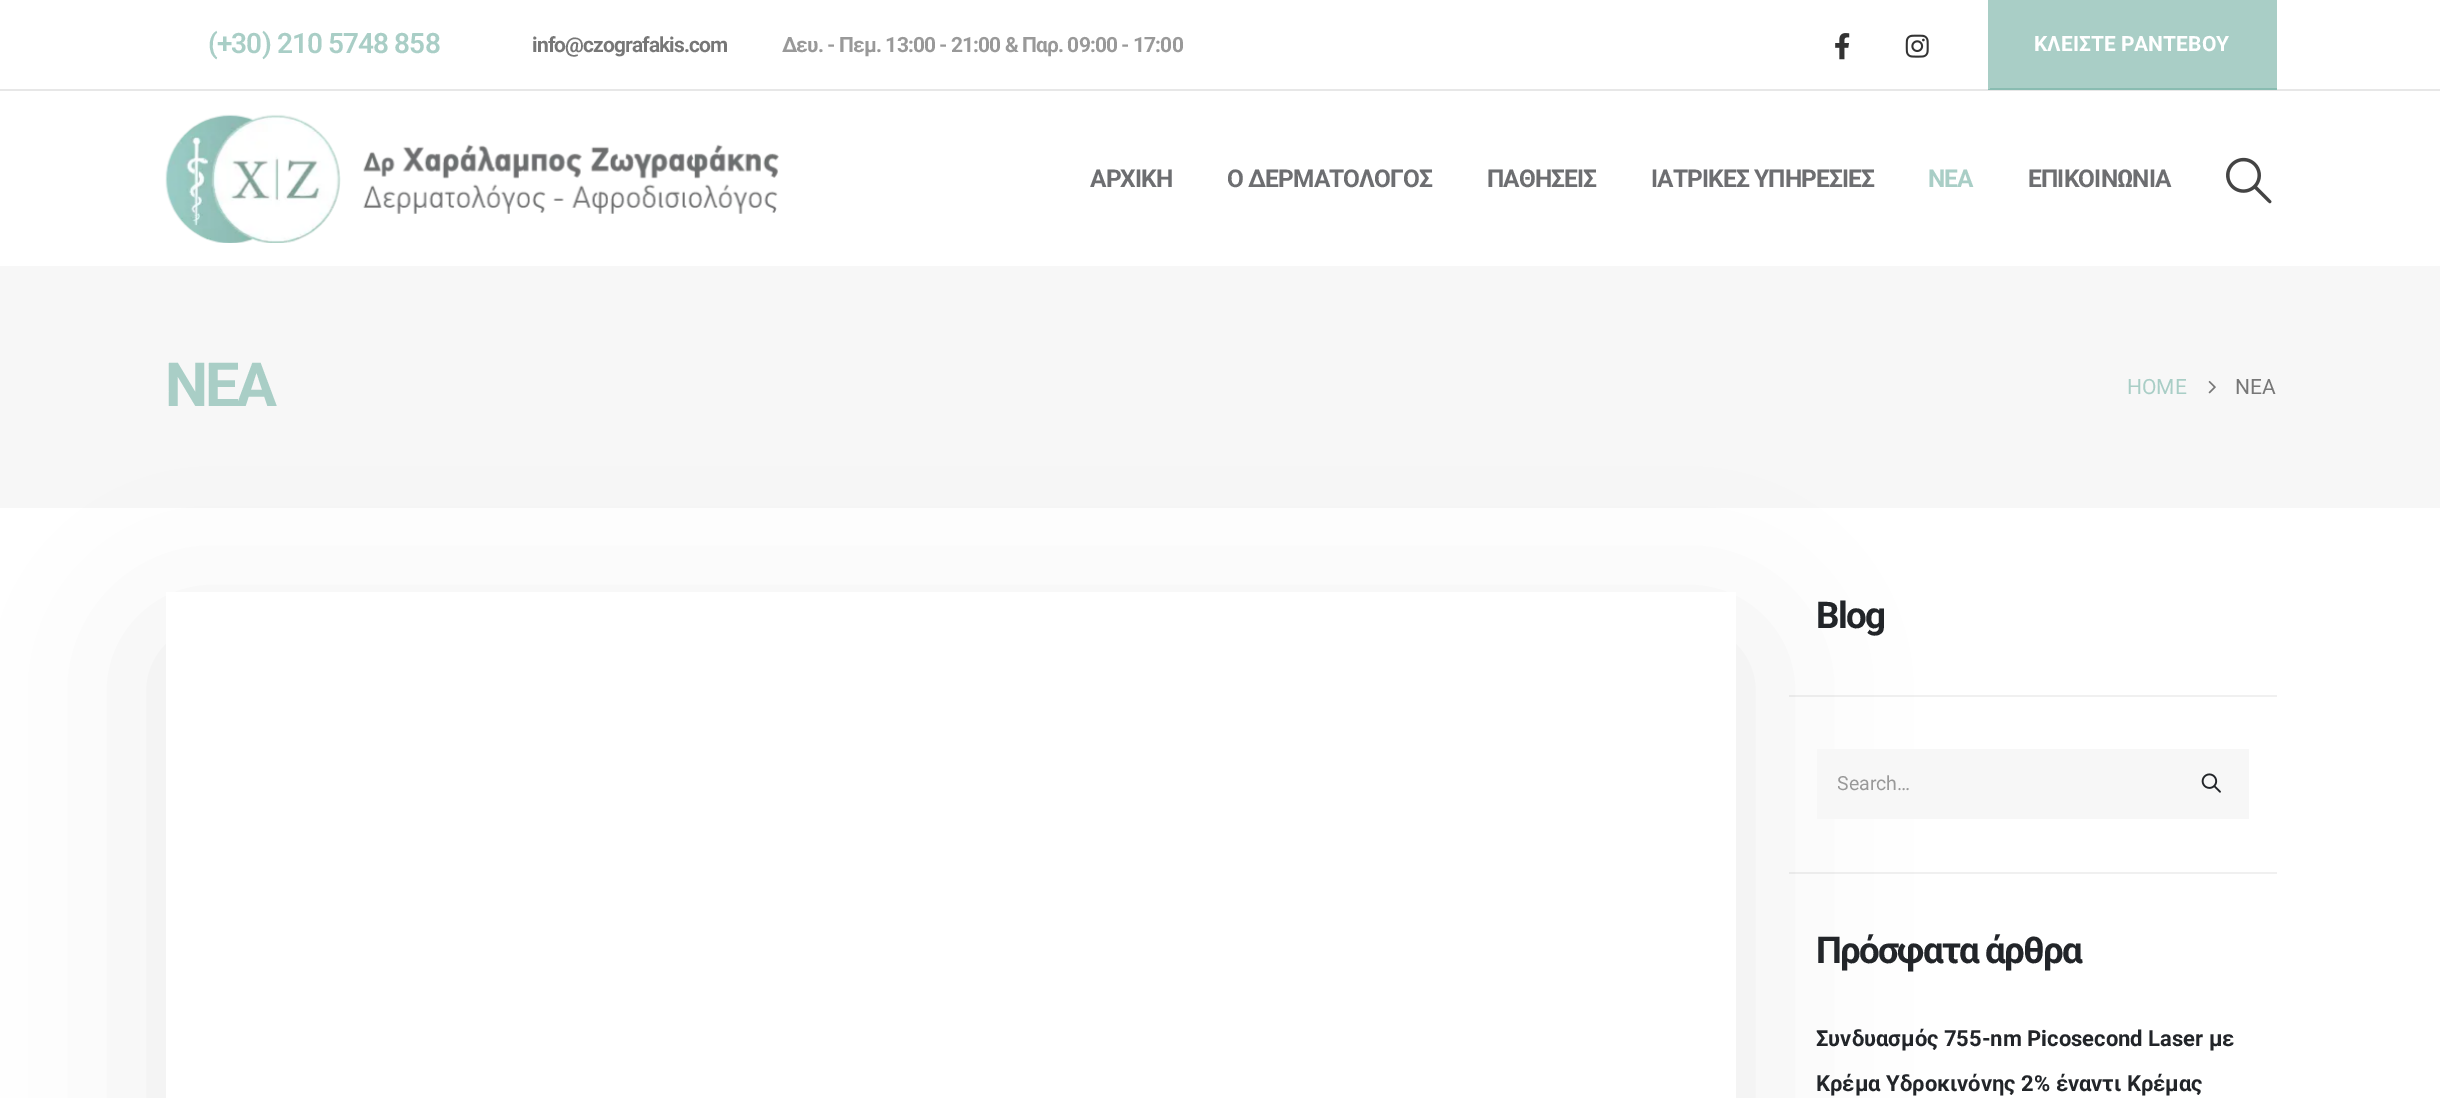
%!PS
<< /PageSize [2440 1098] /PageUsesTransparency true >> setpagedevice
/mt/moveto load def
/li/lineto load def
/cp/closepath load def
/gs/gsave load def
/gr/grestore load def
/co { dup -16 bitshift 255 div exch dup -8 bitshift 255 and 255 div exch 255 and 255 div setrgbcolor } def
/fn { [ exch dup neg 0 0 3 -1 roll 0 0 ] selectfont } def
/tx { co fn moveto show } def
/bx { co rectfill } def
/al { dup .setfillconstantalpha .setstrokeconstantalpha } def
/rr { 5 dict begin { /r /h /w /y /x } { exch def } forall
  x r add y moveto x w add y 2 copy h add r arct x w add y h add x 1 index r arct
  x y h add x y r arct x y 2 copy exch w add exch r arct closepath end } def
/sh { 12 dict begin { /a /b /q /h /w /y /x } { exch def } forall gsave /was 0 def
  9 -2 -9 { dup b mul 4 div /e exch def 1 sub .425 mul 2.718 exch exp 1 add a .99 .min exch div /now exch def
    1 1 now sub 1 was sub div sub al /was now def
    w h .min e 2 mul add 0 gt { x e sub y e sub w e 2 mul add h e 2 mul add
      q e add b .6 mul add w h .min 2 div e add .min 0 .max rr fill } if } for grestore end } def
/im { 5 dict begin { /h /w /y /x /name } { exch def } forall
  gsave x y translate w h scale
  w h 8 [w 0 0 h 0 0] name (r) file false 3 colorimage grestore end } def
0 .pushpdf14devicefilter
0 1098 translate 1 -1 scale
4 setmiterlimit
0 0 2440 1098 16#FFFFFF bx
0 89 2440 2 16#E7E7E7 bx
(media/1.raw) 1835 33 15 27 im
(media/2.raw) 1905 34 24 24 im
1990 0 287 88 16#A9CEC6 bx
1988 88 289 2 16#89BCB1 bx
1988 0 2 89 16#A9CEC6 bx
(media/3.raw) 165 114 614 129 im
(media/4.raw) 2226 157 46 47 im
0 266 2440 242 16#F7F7F7 bx
(media/5.raw) 2208 380 8 14 im
gs
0 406 mt 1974 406 li 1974 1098 li 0 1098 li cp 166 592 mt 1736 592 li 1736 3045 li 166 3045 li cp eoclip newpath
16#000000 co
166 644 1570 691 0 79 .08 sh
gr
0.06 al
1789 695 488 2 16#000000 bx
1 al
1817 749 432 70 16#F7F7F7 bx
(media/6.raw) 2201 773 20 20 im
0.06 al
1789 872 488 2 16#000000 bx
/Roboto-SemiBold 28 fn
1 al
16#A9CEC6 co
208 53 mt -.9 0 (\(+30\) 210 5748 858) ashow
/Roboto-Bold 21 fn
16#777777 co
532 52 mt -.9 0 (info@czografakis.com) ashow
16#999999 co
782 52 mt -.9 0 (Δευ. - Πεμ. 13:00 - 21:00 & Παρ. 09:00 - 17:00) ashow
(ΚΛΕΙΣΤΕ ΡΑΝΤΕΒΟΥ) 2034 51 /Roboto-Bold 21 16#FFFFFF tx
/Roboto-Bold 24.5 fn
16#6D6E71 co
1090 187 mt -.9 0 (ΑΡΧΙΚΗ) ashow
1227 187 mt -.9 0 (Ο ΔΕΡΜΑΤΟΛΟΓΟΣ) ashow
1487 187 mt -.9 0 (ΠΑΘΗΣΕΙΣ) ashow
1651 187 mt -.9 0 (ΙΑΤΡΙΚΕΣ ΥΠΗΡΕΣΙΕΣ) ashow
16#A9CEC6 co
1928 187 mt -.9 0 (ΝΕΑ) ashow
16#6D6E71 co
2028 187 mt -.9 0 (ΕΠΙΚΟΙΝΩΝΙΑ) ashow
/Roboto-Bold 61 fn
16#A9CEC6 co
165 406 mt -3 0 (ΝΕΑ) ashow
(HOME) 2127 394 /Roboto-Regular 21 16#A9CEC6 tx
(ΝΕΑ) 2235 394 /Roboto-Regular 21 16#777777 tx
/Roboto-Bold 36.75 fn
16#222529 co
1816 628 mt -1.8 0 (Blog) ashow
gs
1838 772 316 23 rectclip
(Search…) 1837 790 /Roboto-Regular 19.5 16#999999 tx
gr
1816 963 mt -1.8 0 (Πρόσφατα άρθρα) ashow
(Συνδυασμός 755-nm Picosecond Laser με) 1816 1046 /Roboto-Bold 22 16#222529 tx
(Κρέμα Υδροκινόνης 2% έναντι Κρέμας) 1816 1091 /Roboto-Bold 22 16#222529 tx
.poppdf14devicefilter showpage
